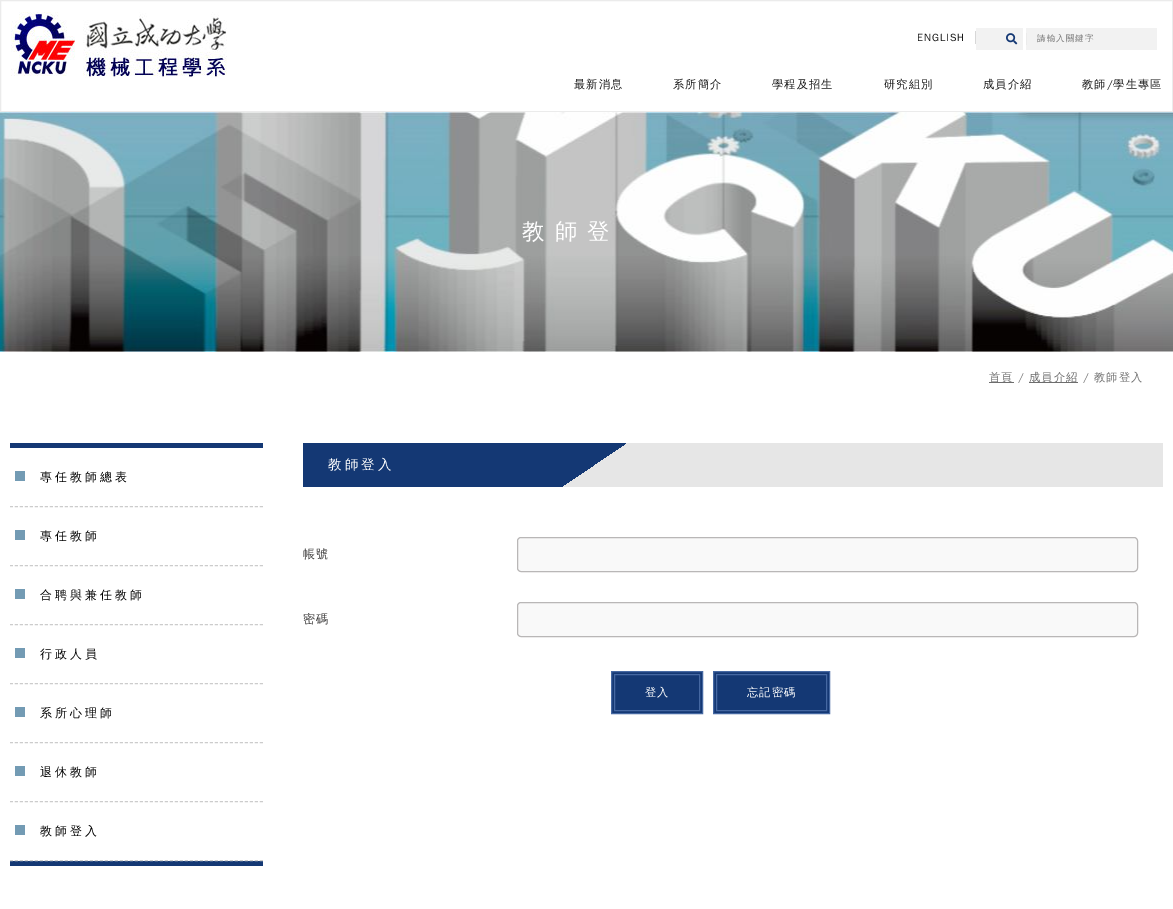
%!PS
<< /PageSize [1173 909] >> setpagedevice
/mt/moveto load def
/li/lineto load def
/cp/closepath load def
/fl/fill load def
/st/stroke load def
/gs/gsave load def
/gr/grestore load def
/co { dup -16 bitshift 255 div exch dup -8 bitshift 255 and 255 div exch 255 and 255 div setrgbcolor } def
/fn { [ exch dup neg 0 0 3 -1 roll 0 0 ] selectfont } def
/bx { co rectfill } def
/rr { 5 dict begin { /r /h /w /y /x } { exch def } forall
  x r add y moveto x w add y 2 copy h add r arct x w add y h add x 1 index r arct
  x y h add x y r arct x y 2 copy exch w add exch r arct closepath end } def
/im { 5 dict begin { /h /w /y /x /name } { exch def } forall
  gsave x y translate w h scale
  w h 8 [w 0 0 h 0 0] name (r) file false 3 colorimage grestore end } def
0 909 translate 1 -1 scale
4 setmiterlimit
0 0 1173 909 16#FFFFFF bx
16#EBEBEB co
.5 .5 1172 111 rectstroke
(media/1.raw) 11 12 216 66 im
975 31 1 13 16#D7D7D7 bx
976 28 47 22 16#F2F2F2 bx
1026 28 131 22 16#F2F2F2 bx
(media/2.raw) 1006 33 12 12 im
1026 33 1 12 16#EBEBEB bx
(media/3.raw) 0 112 1173 240 im
989 382 25 1 16#6D6D6D bx
1029 382 49 1 16#6D6D6D bx
10 443 253 5 16#143874 bx
10 861 253 5 16#143874 bx
16#CCCCCC co
[3 2] 0 setdash
10 506.5 mt 263 506.5 li st
15 471 10 10 16#739BB4 bx
16#CCCCCC co
10 565.5 mt 263 565.5 li st
15 530 10 10 16#739BB4 bx
16#CCCCCC co
10 624.5 mt 263 624.5 li st
15 589 10 10 16#739BB4 bx
16#CCCCCC co
10 683.5 mt 263 683.5 li st
15 648 10 10 16#739BB4 bx
16#CCCCCC co
10 742.5 mt 263 742.5 li st
15 707 10 10 16#739BB4 bx
16#CCCCCC co
10 801.5 mt 263 801.5 li st
15 766 10 10 16#739BB4 bx
16#CCCCCC co
10 860.5 mt 263 860.5 li st
15 825 10 10 16#739BB4 bx
gs 303 443 mt 1163 443 li 1163 487 li 303 487 li cp clip newpath
<< /ShadingType 2 /ColorSpace /DeviceRGB /Coords [878 679 588 251] /Extend [true true] /Function << /FunctionType 3 /Domain [0 1] /Functions [<< /FunctionType 2 /Domain [0 1] /C0 [.902 .902 .902] /C1 [.902 .902 .902] /N 1 >> << /FunctionType 2 /Domain [0 1] /C0 [.078 .22 .455] /C1 [.078 .22 .455] /N 1 >>] /Bounds [.65] /Encode [0 1 0 1] >> >> shfill gr
16#F9F9F9 co
517.5 537.5 620 34 3.5 rr gs fl gr
16#B9B7B7 co
[] 0 setdash
st
16#F9F9F9 co
517.5 602.5 620 34 3.5 rr gs fl gr
16#B9B7B7 co
st
16#143874 co
611.5 671.5 mt 702.5 671.5 li 702.5 713.5 li 611.5 713.5 li cp gs fl gr
16#4568A2 co
st
614.5 674.5 85 36 rectstroke
16#143874 co
713.5 671.5 mt 829.5 671.5 li 829.5 713.5 li 713.5 713.5 li cp gs fl gr
16#4568A2 co
st
716.5 674.5 110 36 rectstroke
/WenQuanYiZenHei-Medium 10.5 fn
16#191919 co
917 41 mt 1 0 (ENGLISH) ashow
/WenQuanYiZenHei-Medium 8.5 fn
16#737373 co
1037 41 mt 1 0 (請輸入關鍵字) ashow
/WenQuanYiZenHei-Medium 11.25 fn
16#191919 co
574 88 mt 1 0 (最新消息) ashow
673 88 mt 1 0 (系所簡介) ashow
772 88 mt 1 0 (學程及招生) ashow
884 88 mt 1 0 (研究組別) ashow
983 88 mt 1 0 (成員介紹) ashow
1082 88 mt 1 0 (教師/學生專區) ashow
/WenQuanYiZenHei-Medium 22.5 fn
16#FFFFFF co
522 239 mt 10 0 (教師登) ashow
/WenQuanYiZenHei-Medium 11.25 fn
16#6D6D6D co
989 381 mt 1 0 (首頁) ashow
16#737373 co
1018 381 mt 1 0 (/) ashow
16#6D6D6D co
1029 381 mt 1 0 (成員介紹) ashow
16#737373 co
1083 381 mt 1 0 (/ 教師登入) ashow
/WenQuanYiZenHei-Medium 12 fn
16#000000 co
40 481 mt 3 0 (專任教師總表) ashow
40 540 mt 3 0 (專任教師) ashow
40 599 mt 3 0 (合聘與兼任教師) ashow
40 658 mt 3 0 (行政人員) ashow
40 717 mt 3 0 (系所心理師) ashow
40 776 mt 3 0 (退休教師) ashow
40 835 mt 3 0 (教師登入) ashow
/WenQuanYiZenHei-Medium 13.5 fn
16#FFFFFF co
328 469 mt 3 0 (教師登入) ashow
/WenQuanYiZenHei-Medium 12 fn
16#3B3A3A co
303 558 mt 1 0 (帳號) ashow
303 623 mt 1 0 (密碼) ashow
/WenQuanYiZenHei-Medium 11.25 fn
16#FFFFFF co
645 696 mt 1 0 (登入) ashow
747 696 mt 1 0 (忘記密碼) ashow
showpage
